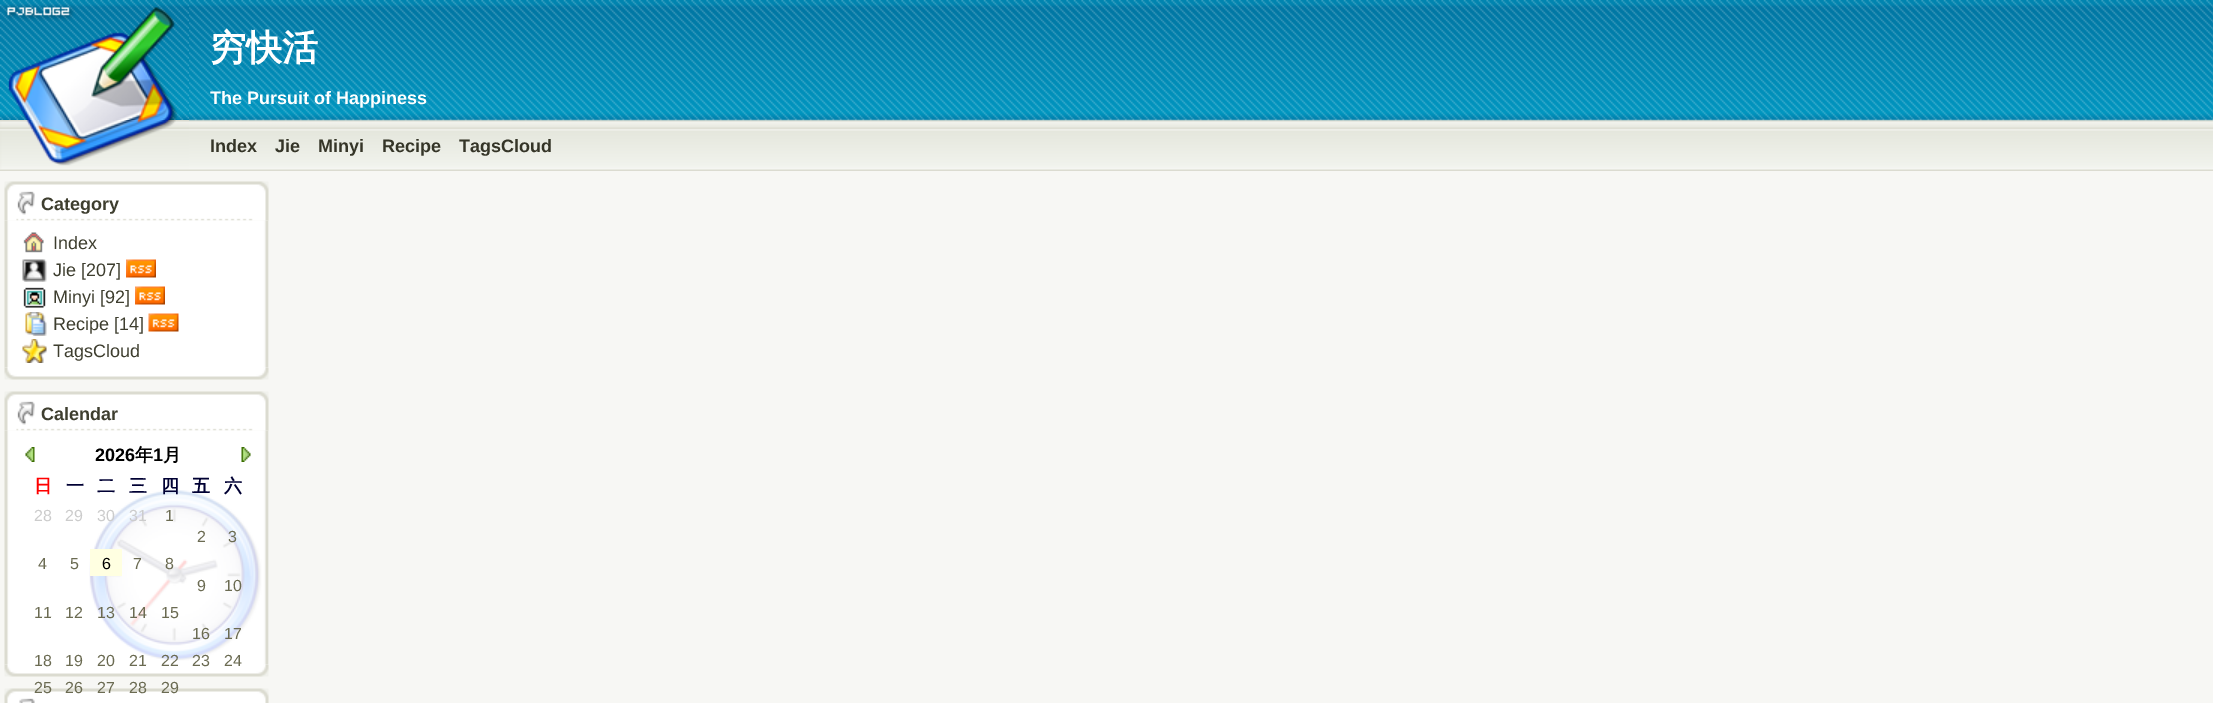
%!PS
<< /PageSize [2213 703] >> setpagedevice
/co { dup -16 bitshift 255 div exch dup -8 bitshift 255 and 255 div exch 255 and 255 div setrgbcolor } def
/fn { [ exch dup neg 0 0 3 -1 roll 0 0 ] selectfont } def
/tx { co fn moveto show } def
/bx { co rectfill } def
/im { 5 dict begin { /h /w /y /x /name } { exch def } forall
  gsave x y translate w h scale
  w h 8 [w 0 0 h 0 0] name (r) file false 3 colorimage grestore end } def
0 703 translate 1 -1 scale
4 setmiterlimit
0 0 2213 703 16#F7F7F4 bx
(media/1.raw) 0 0 2213 171 im
(media/2.raw) 0 0 189 120 im
(media/3.raw) 0 120 189 49 im
(media/4.raw) 4 181 265 40 im
5 221 264 147 16#FFFFFF bx
(media/5.raw) 4 220 265 148 im
(media/6.raw) 23 232 21 21 im
(media/7.raw) 22 259 25 23 im
(media/8.raw) 126 259 30 19 im
(media/9.raw) 23 287 23 21 im
(media/8.raw) 135 286 30 19 im
(media/10.raw) 25 312 22 24 im
(media/11.raw) 148 313 31 19 im
(media/12.raw) 22 339 25 24 im
(media/13.raw) 4 367 265 13 im
(media/4.raw) 4 391 265 40 im
5 431 264 234 16#FFFFFF bx
(media/14.raw) 4 430 265 235 im
(media/15.raw) 25 447 10 15 im
(media/16.raw) 241 447 10 15 im
90 549 32 27 16#FFFFE1 bx
(media/13.raw) 4 664 265 13 im
(media/17.raw) 4 688 265 15 im
(穷快活) 210 60 /WenQuanYiZenHei-Bold 36 16#FFFFFF tx
(The Pursuit of Happiness) 210 104 /LiberationSans-Bold 18 16#FFFFFF tx
(Index) 210 152 /LiberationSans-Bold 18 16#353528 tx
(Jie) 275 152 /LiberationSans-Bold 18 16#353528 tx
(Minyi) 318 152 /LiberationSans-Bold 18 16#353528 tx
(Recipe) 382 152 /LiberationSans-Bold 18 16#353528 tx
(TagsCloud) 459 152 /LiberationSans-Bold 18 16#353528 tx
(Category) 41 210 /LiberationSans-Bold 18 16#3E3E2F tx
(Index) 53 249 /LiberationSans-Regular 18 16#3E3E2F tx
(Jie [207]) 53 276 /LiberationSans-Regular 18 16#3E3E2F tx
(Minyi [92]) 53 303 /LiberationSans-Regular 18 16#3E3E2F tx
(Recipe [14]) 53 330 /LiberationSans-Regular 18 16#3E3E2F tx
(TagsCloud) 53 357 /LiberationSans-Regular 18 16#3E3E2F tx
(Calendar) 41 420 /LiberationSans-Bold 18 16#3E3E2F tx
(2026) 95 461 /LiberationSans-Bold 18 16#000000 tx
(年) 135 461 /WenQuanYiZenHei-Bold 18 16#000000 tx
(1) 153 461 /LiberationSans-Bold 18 16#000000 tx
(月) 163 461 /WenQuanYiZenHei-Bold 18 16#000000 tx
(日) 34 492 /WenQuanYiZenHei-Bold 18 16#FF0000 tx
(一) 66 492 /WenQuanYiZenHei-Bold 18 16#000033 tx
(二) 97 492 /WenQuanYiZenHei-Bold 18 16#000033 tx
(三) 129 492 /WenQuanYiZenHei-Bold 18 16#000033 tx
(四) 161 492 /WenQuanYiZenHei-Bold 18 16#000033 tx
(五) 192 492 /WenQuanYiZenHei-Bold 18 16#000033 tx
(六) 224 492 /WenQuanYiZenHei-Bold 18 16#000033 tx
(28) 34 521 /LiberationSans-Regular 16 16#CCCCCC tx
(29) 65 521 /LiberationSans-Regular 16 16#CCCCCC tx
(30) 97 521 /LiberationSans-Regular 16 16#CCCCCC tx
(31) 129 521 /LiberationSans-Regular 16 16#CCCCCC tx
(1) 165 521 /LiberationSans-Regular 16 16#6B6B52 tx
(2) 197 542 /LiberationSans-Regular 16 16#6B6B52 tx
(3) 228 542 /LiberationSans-Regular 16 16#6B6B52 tx
(4) 38 569 /LiberationSans-Regular 16 16#6B6B52 tx
(5) 70 569 /LiberationSans-Regular 16 16#6B6B52 tx
(6) 102 569 /LiberationSans-Regular 16 16#000000 tx
(7) 133 569 /LiberationSans-Regular 16 16#6B6B52 tx
(8) 165 569 /LiberationSans-Regular 16 16#6B6B52 tx
(9) 197 591 /LiberationSans-Regular 16 16#6B6B52 tx
(10) 224 591 /LiberationSans-Regular 16 16#6B6B52 tx
(11) 34 618 /LiberationSans-Regular 16 16#6B6B52 tx
(12) 65 618 /LiberationSans-Regular 16 16#6B6B52 tx
(13) 97 618 /LiberationSans-Regular 16 16#6B6B52 tx
(14) 129 618 /LiberationSans-Regular 16 16#6B6B52 tx
(15) 161 618 /LiberationSans-Regular 16 16#6B6B52 tx
(16) 192 639 /LiberationSans-Regular 16 16#6B6B52 tx
(17) 224 639 /LiberationSans-Regular 16 16#6B6B52 tx
(18) 34 666 /LiberationSans-Regular 16 16#6B6B52 tx
(19) 65 666 /LiberationSans-Regular 16 16#6B6B52 tx
(20) 97 666 /LiberationSans-Regular 16 16#6B6B52 tx
(21) 129 666 /LiberationSans-Regular 16 16#6B6B52 tx
(22) 161 666 /LiberationSans-Regular 16 16#6B6B52 tx
(23) 192 666 /LiberationSans-Regular 16 16#6B6B52 tx
(24) 224 666 /LiberationSans-Regular 16 16#6B6B52 tx
(25) 34 693 /LiberationSans-Regular 16 16#6B6B52 tx
(26) 65 693 /LiberationSans-Regular 16 16#6B6B52 tx
(27) 97 693 /LiberationSans-Regular 16 16#6B6B52 tx
(28) 129 693 /LiberationSans-Regular 16 16#6B6B52 tx
(29) 161 693 /LiberationSans-Regular 16 16#6B6B52 tx
showpage
